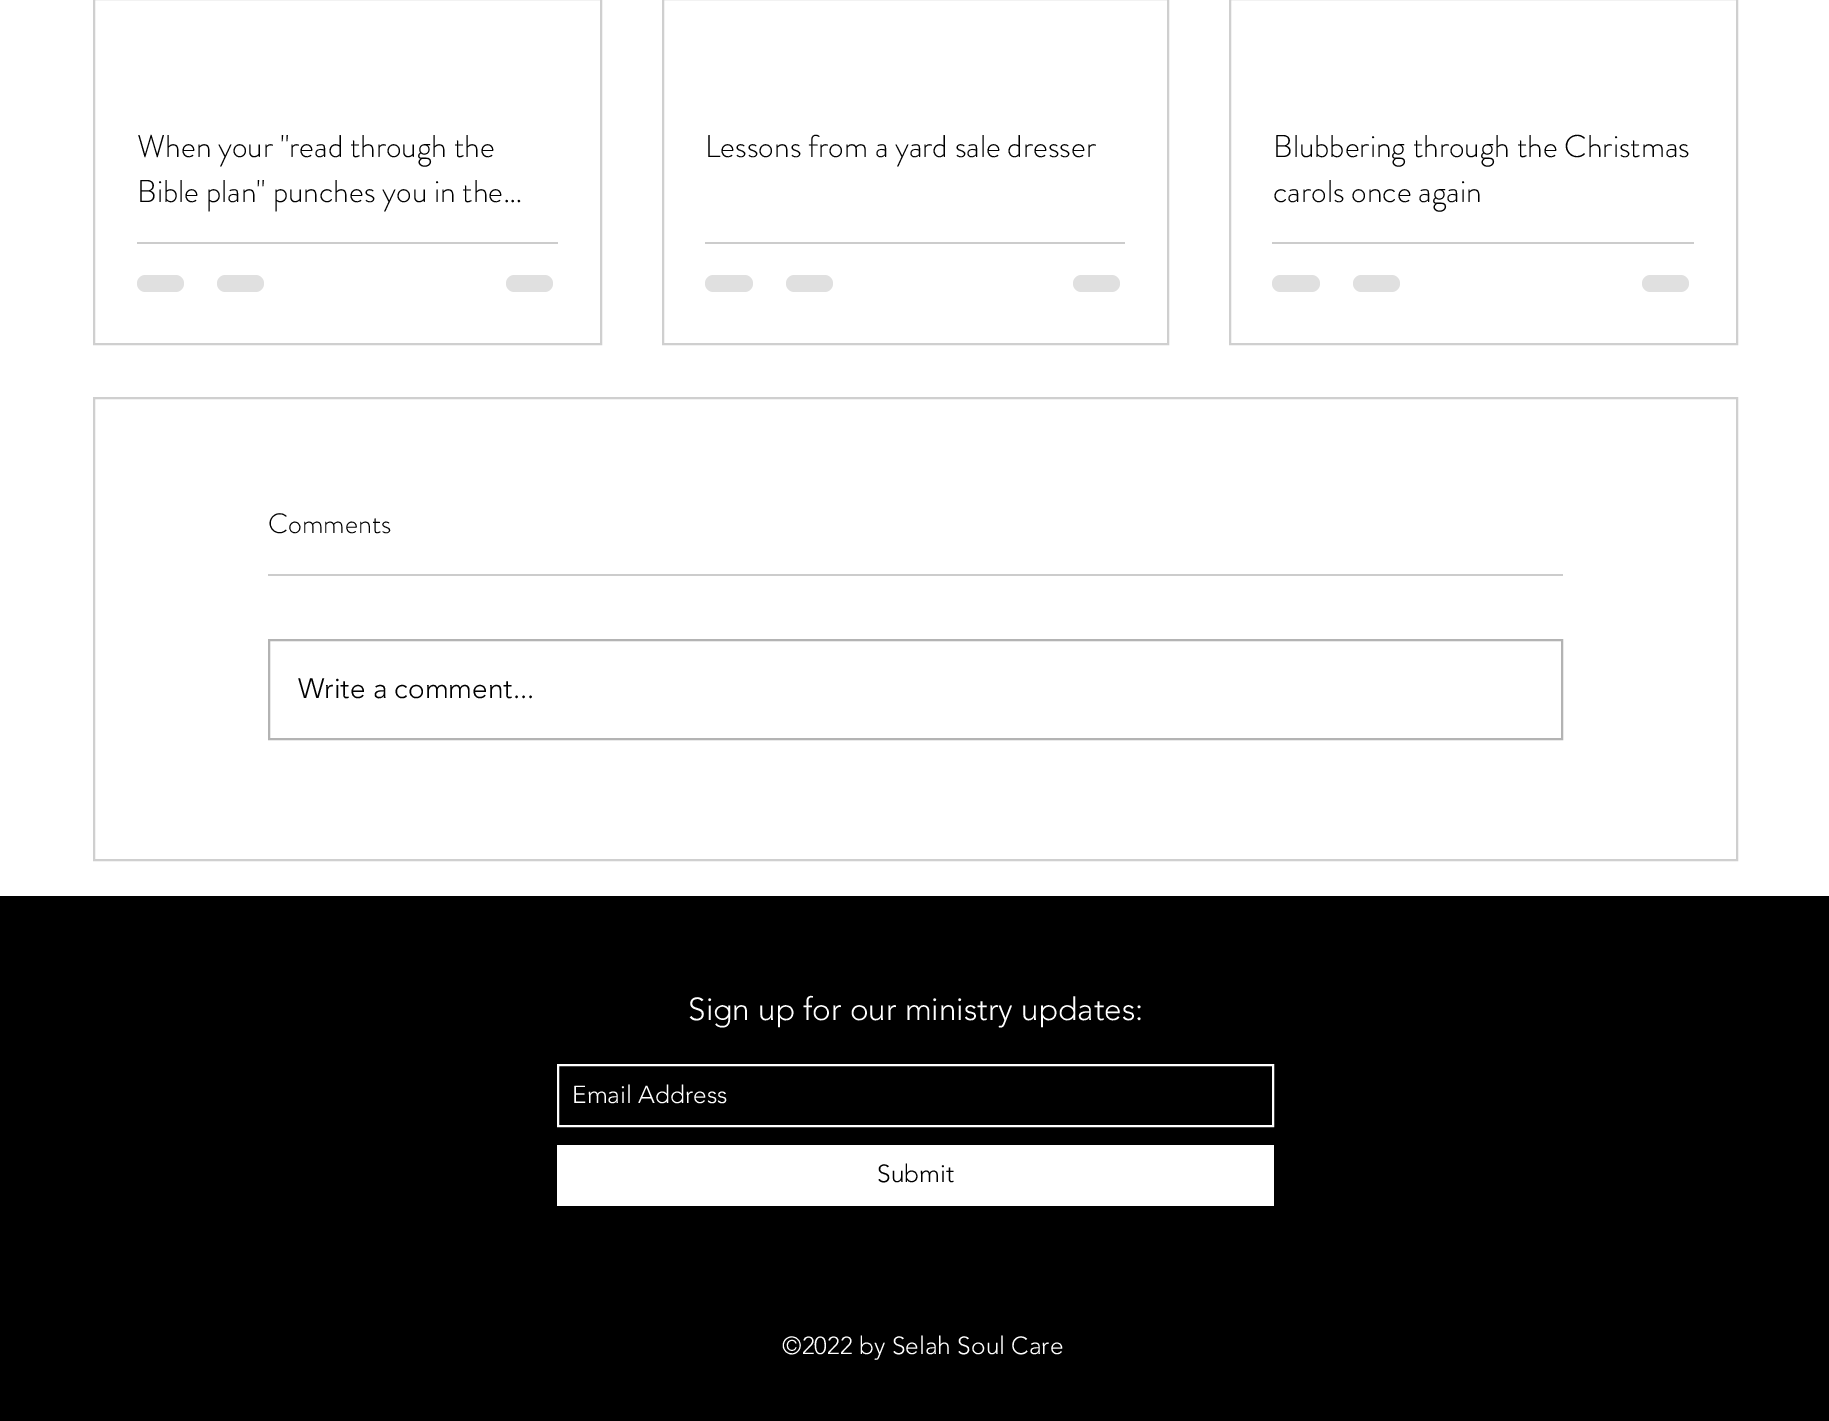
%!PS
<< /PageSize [1829 1421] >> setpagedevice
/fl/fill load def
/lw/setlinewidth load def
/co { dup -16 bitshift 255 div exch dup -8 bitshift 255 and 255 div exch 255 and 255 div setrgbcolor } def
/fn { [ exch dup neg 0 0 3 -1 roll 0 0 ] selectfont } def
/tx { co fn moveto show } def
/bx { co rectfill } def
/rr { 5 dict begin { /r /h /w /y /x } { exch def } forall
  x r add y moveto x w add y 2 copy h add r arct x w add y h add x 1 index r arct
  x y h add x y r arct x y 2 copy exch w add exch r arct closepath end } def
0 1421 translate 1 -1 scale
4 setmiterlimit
0 0 1829 1421 16#FFFFFF bx
16#CFCFCF co
2 lw
94 -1 507 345 rectstroke
137 242 421 2 16#CCCCCC bx
16#E0E0E0 co
137 275 47 17 8.5 rr fl
217 275 47 17 8.5 rr fl
506 275 47 17 8.5 rr fl
16#CFCFCF co
663 -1 505 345 rectstroke
705 242 420 2 16#CCCCCC bx
16#E0E0E0 co
705 275 48 17 8.5 rr fl
786 275 47 17 8.5 rr fl
1073 275 47 17 8.5 rr fl
16#CFCFCF co
1230 -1 507 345 rectstroke
1272 242 422 2 16#CCCCCC bx
16#E0E0E0 co
1272 275 48 17 8.5 rr fl
1353 275 47 17 8.5 rr fl
1642 275 47 17 8.5 rr fl
16#CFCFCF co
94 398 1643 462 rectstroke
268 574 1295 2 16#CCCCCC bx
16#B3B3B3 co
269 640 1293 99 rectstroke
0 896 1829 525 16#000000 bx
16#FFFFFF co
558 1065 715 61 rectstroke
557 1145 717 61 16#FFFFFF bx
(When your "read through the) 137 157 /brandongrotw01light-Light 31.5 16#000000 tx
(Bible plan" punches you in the…) 137 202 /brandongrotw01light-Light 31.5 16#000000 tx
(Lessons from a yard sale dresser) 705 157 /brandongrotw01light-Light 31.5 16#000000 tx
(Blubbering through the Christmas) 1273 157 /brandongrotw01light-Light 31.5 16#000000 tx
(carols once again) 1273 202 /brandongrotw01light-Light 31.5 16#000000 tx
(Comments) 268 533 /brandongrotw01light-Light 28 16#000000 tx
(Write a comment...) 298 698 /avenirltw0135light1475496-Light 28 16#000000 tx
(Sign up for our ministry updates:) 688 1020 /avenirltw0135light1475496-Light 31.5 16#FFFFFF tx
(Email Address) 572 1103 /avenirltw0135light1475496-Light 24.5 16#FFFFFF tx
(Submit) 877 1182 /avenirltw0135light1475496-Light 24.5 16#000000 tx
(©2022 by Selah Soul Care) 782 1354 /avenirltw0135light1475496-Light 24.5 16#FFFFFF tx
showpage
